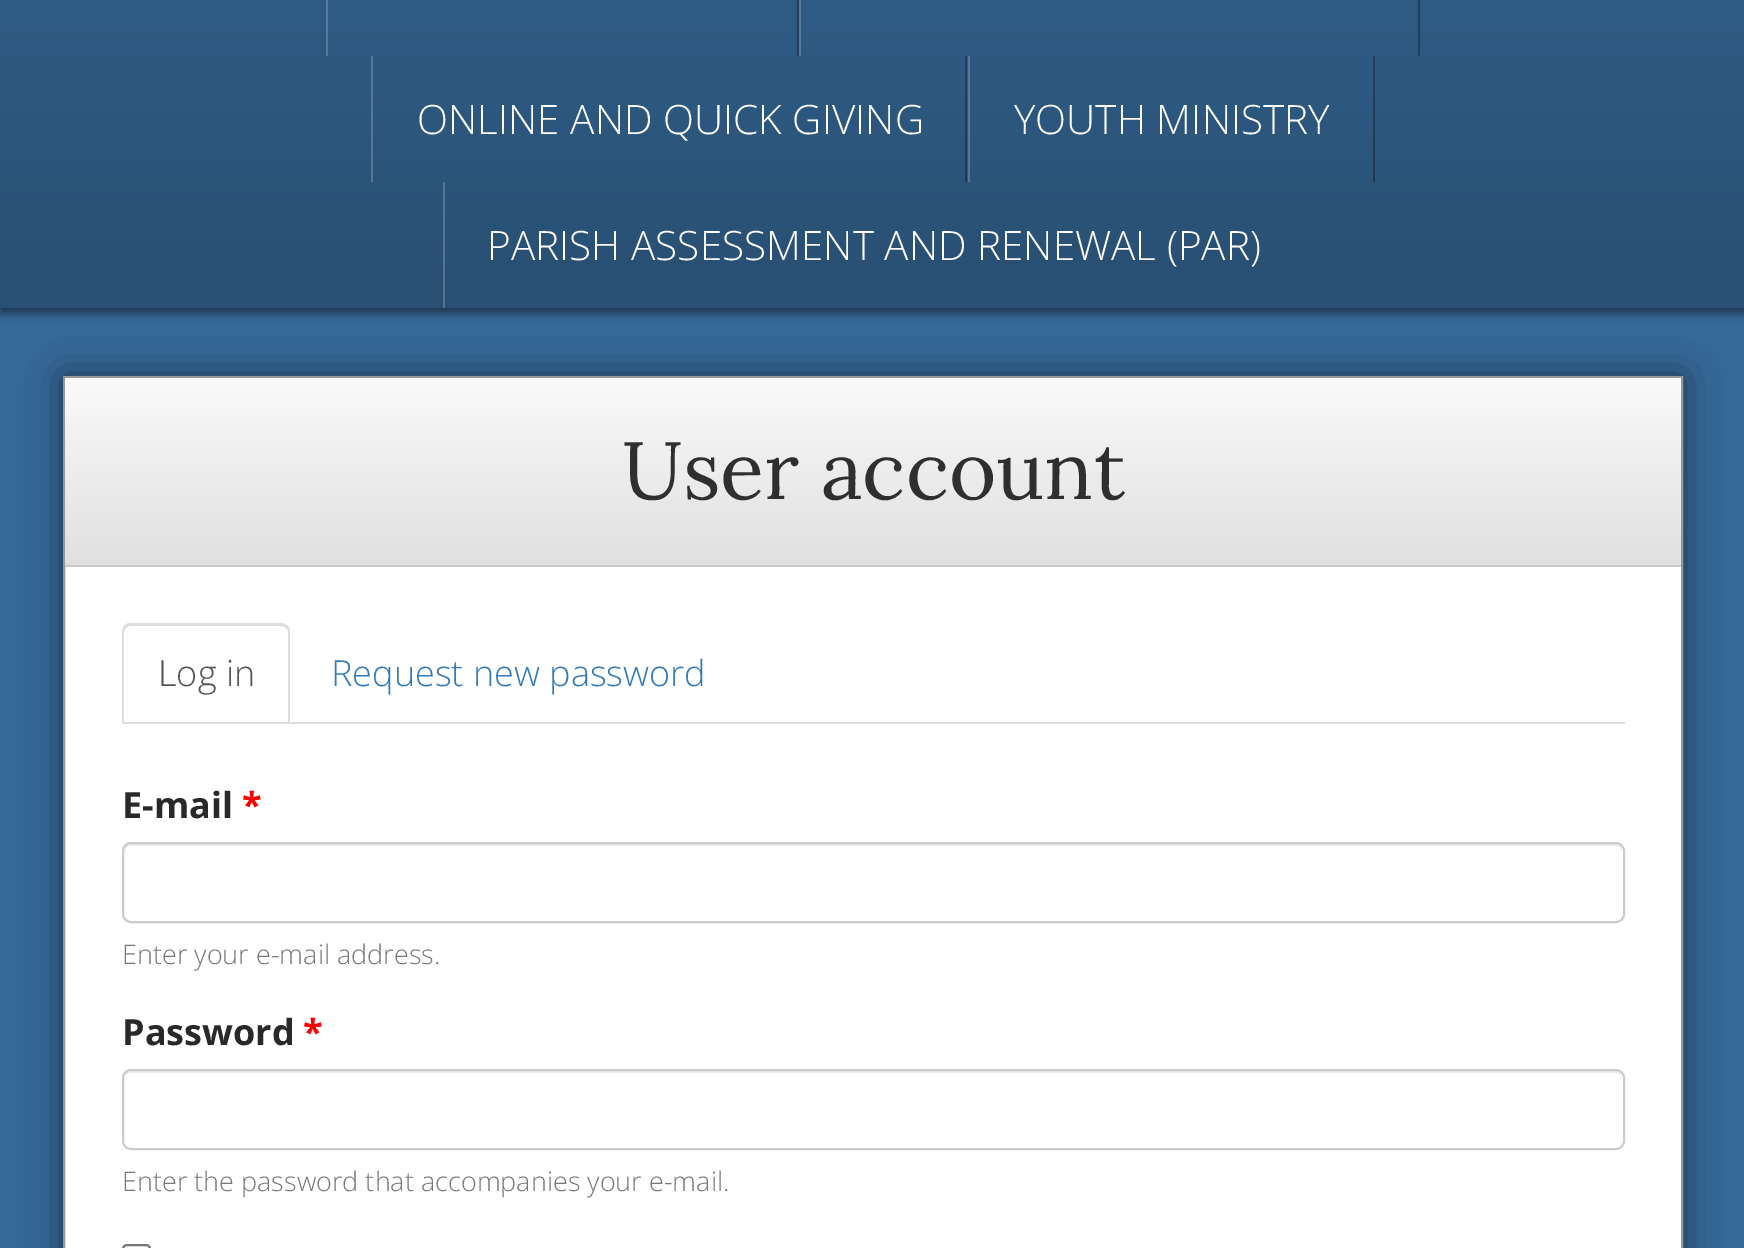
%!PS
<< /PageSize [1744 1248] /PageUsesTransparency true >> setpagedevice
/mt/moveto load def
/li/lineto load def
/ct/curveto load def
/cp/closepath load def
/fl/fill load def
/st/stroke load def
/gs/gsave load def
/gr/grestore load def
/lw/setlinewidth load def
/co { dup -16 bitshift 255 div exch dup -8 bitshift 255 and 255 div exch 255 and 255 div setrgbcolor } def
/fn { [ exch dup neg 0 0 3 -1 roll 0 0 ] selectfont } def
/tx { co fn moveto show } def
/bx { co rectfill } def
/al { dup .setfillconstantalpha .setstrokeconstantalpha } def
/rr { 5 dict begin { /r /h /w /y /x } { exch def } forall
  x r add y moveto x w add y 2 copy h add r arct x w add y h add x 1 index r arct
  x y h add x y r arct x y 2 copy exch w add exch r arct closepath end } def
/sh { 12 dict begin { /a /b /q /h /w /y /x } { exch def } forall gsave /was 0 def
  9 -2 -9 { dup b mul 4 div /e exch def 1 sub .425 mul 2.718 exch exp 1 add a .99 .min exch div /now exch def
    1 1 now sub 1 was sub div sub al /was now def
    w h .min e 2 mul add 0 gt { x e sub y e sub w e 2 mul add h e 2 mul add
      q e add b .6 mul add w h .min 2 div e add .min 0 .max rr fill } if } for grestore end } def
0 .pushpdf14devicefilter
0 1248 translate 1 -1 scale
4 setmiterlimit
0 0 1744 1248 16#366998 bx
16#000000 co
0 -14 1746 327 0 4.5 .5 sh
gs 0 0 mt 1744 0 li 1744 308 li 0 308 li cp clip newpath
<< /ShadingType 2 /ColorSpace /DeviceRGB /Coords [873 -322 873 308] /Extend [true true] /Function << /FunctionType 2 /Domain [0 1] /C0 [.212 .412 .596] /C1 [.161 .31 .447] /N 1 >> >> shfill gr
gs 443 182 mt 445 182 li 445 308 li 443 308 li cp clip newpath
<< /ShadingType 2 /ColorSpace /DeviceRGB /Coords [873 -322 873 308] /Extend [true true] /Function << /FunctionType 2 /Domain [0 1] /C0 [.369 .529 .678] /C1 [.329 .447 .557] /N 1 >> >> shfill gr
gs 968 56 mt 970 56 li 970 182 li 968 182 li cp clip newpath
<< /ShadingType 2 /ColorSpace /DeviceRGB /Coords [873 -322 873 308] /Extend [true true] /Function << /FunctionType 2 /Domain [0 1] /C0 [.369 .529 .678] /C1 [.329 .447 .557] /N 1 >> >> shfill gr
gs 1373 56 mt 1375 56 li 1375 182 li 1373 182 li cp clip newpath
<< /ShadingType 2 /ColorSpace /DeviceRGB /Coords [873 -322 873 308] /Extend [true true] /Function << /FunctionType 2 /Domain [0 1] /C0 [.149 .29 .416] /C1 [.114 .216 .314] /N 1 >> >> shfill gr
gs 371 56 mt 373 56 li 373 182 li 371 182 li cp clip newpath
<< /ShadingType 2 /ColorSpace /DeviceRGB /Coords [873 -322 873 308] /Extend [true true] /Function << /FunctionType 2 /Domain [0 1] /C0 [.369 .529 .678] /C1 [.329 .447 .557] /N 1 >> >> shfill gr
gs 965 56 mt 967 56 li 967 182 li 965 182 li cp clip newpath
<< /ShadingType 2 /ColorSpace /DeviceRGB /Coords [873 -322 873 308] /Extend [true true] /Function << /FunctionType 2 /Domain [0 1] /C0 [.149 .29 .416] /C1 [.114 .216 .314] /N 1 >> >> shfill gr
gs 799 0 mt 801 0 li 801 56 li 799 56 li cp clip newpath
<< /ShadingType 2 /ColorSpace /DeviceRGB /Coords [873 -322 873 308] /Extend [true true] /Function << /FunctionType 2 /Domain [0 1] /C0 [.369 .529 .678] /C1 [.329 .447 .557] /N 1 >> >> shfill gr
gs 1418 0 mt 1420 0 li 1420 56 li 1418 56 li cp clip newpath
<< /ShadingType 2 /ColorSpace /DeviceRGB /Coords [873 -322 873 308] /Extend [true true] /Function << /FunctionType 2 /Domain [0 1] /C0 [.149 .29 .416] /C1 [.114 .216 .314] /N 1 >> >> shfill gr
gs 326 0 mt 328 0 li 328 56 li 326 56 li cp clip newpath
<< /ShadingType 2 /ColorSpace /DeviceRGB /Coords [873 -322 873 308] /Extend [true true] /Function << /FunctionType 2 /Domain [0 1] /C0 [.369 .529 .678] /C1 [.329 .447 .557] /N 1 >> >> shfill gr
gs 797 0 mt 799 0 li 799 56 li 797 56 li cp clip newpath
<< /ShadingType 2 /ColorSpace /DeviceRGB /Coords [873 -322 873 308] /Extend [true true] /Function << /FunctionType 2 /Domain [0 1] /C0 [.149 .29 .416] /C1 [.114 .216 .314] /N 1 >> >> shfill gr
63 376 1620 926 0 18 .5 sh
65 567 1616 681 16#FFFFFF bx
16#979797 co
2 lw
64 377 1618 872 rectstroke
gs 65 378 mt 1681 378 li 1681 565 li 65 565 li cp clip newpath
<< /ShadingType 2 /ColorSpace /DeviceRGB /Coords [873 378 873 565] /Extend [true true] /Function << /FunctionType 2 /Domain [0 1] /C0 [.98 .98 .98] /C1 [.878 .878 .878] /N 1 >> >> shfill gr
65 565 1616 2 16#C8C8C8 bx
122 722 1503 2 16#DDDDDD bx
130 626 mt 129 626 127 627 126 628 ct 124 626 li 125 625 127 624 128 623 ct 283 623 li 285 624 286 625 288 626 ct 286 628 li 285 627 283 626 281 626 ct cp fl
288 626 mt 289 627 290 630 290 632 ct 290 724 li 288 722 li 288 632 li 288 630 287 629 286 628 ct cp fl
122 724 mt 124 722 li 124 631 li 126 628 li 124 626 li 123 628 122 630 122 632 ct cp fl
16#ECECEC co
130 846 mt 1616 846 li 1619 846 1622 849 1622 853 ct 1622 849 1620 844 1615 844 ct 131 844 li 126 844 124 849 124 853 ct 124 849 127 846 130 846 ct cp fl
16#CCCCCC co
123 843 1501 79 8 rr st
16#ECECEC co
130 1073 mt 1616 1073 li 1619 1073 1622 1076 1622 1080 ct 1622 1076 1620 1071 1615 1071 ct 131 1071 li 126 1071 124 1076 124 1080 ct 124 1076 127 1073 130 1073 ct cp fl
16#CCCCCC co
123 1070 1501 79 8 rr st
16#767676 co
123 1245 27 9 4 rr st
(ONLINE AND QUICK GIVING) 417 134 /OpenSans-Light 40.5 16#FFFFFF tx
(YOUTH MINISTRY) 1014 134 /OpenSans-Light 40.5 16#FFFFFF tx
(PARISH ASSESSMENT AND RENEWAL \(PAR\)) 487 260 /OpenSans-Light 40.5 16#FFFFFF tx
(User account) 622 499 /Lora-Regular 81 16#2F2F2F tx
(Log in) 158 686 /OpenSans-Light 36 16#555555 tx
(Request new password) 331 686 /OpenSans-Light 36 16#337AB7 tx
(E-mail) 122 818 /OpenSans-Bold 36 16#292929 tx
(*) 242 818 /OpenSans-Bold 36 16#FF0000 tx
(Enter your e-mail address.) 122 964 /OpenSans-Light 27 16#777777 tx
(Password) 122 1045 /OpenSans-Bold 36 16#292929 tx
(*) 303 1045 /OpenSans-Bold 36 16#FF0000 tx
(Enter the password that accompanies your e-mail.) 122 1191 /OpenSans-Light 27 16#777777 tx
.poppdf14devicefilter showpage
